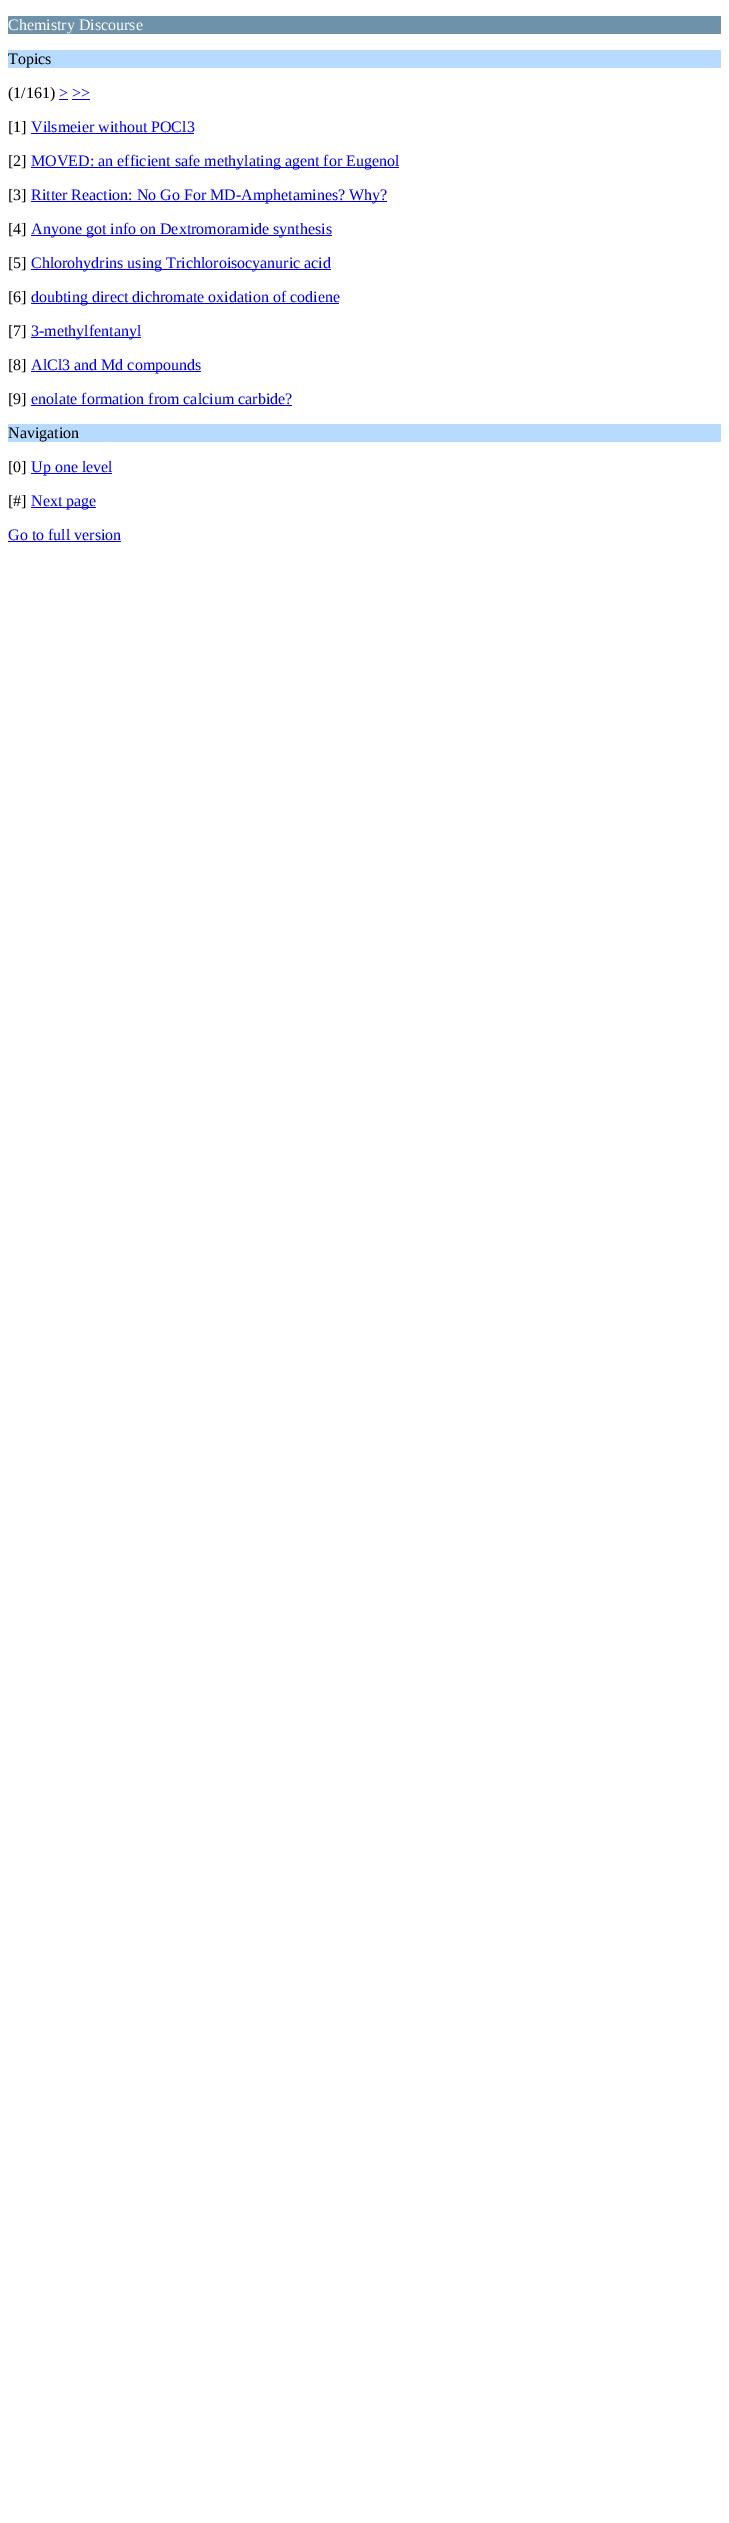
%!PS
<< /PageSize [729 2523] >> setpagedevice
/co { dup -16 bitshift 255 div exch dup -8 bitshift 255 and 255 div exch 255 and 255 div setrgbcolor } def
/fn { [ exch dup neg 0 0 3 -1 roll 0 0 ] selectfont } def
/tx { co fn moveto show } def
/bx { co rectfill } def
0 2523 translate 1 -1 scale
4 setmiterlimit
0 0 729 2523 16#FFFFFF bx
8 16 713 18 16#6D92AA bx
8 50 713 18 16#B6DBFF bx
59 99 9 1 16#0000EE bx
72 99 18 1 16#0000EE bx
31 133 163 1 16#0000EE bx
31 167 368 1 16#0000EE bx
31 201 356 1 16#0000EE bx
31 235 301 1 16#0000EE bx
31 269 300 1 16#0000EE bx
31 303 308 1 16#0000EE bx
31 337 110 1 16#0000EE bx
31 371 170 1 16#0000EE bx
31 405 261 1 16#0000EE bx
8 424 713 18 16#B6DBFF bx
31 473 81 1 16#0000EE bx
31 507 65 1 16#0000EE bx
8 541 113 1 16#0000EE bx
(Chemistry Discourse) 8 30 /LiberationSerif-Regular 16 16#FFFFFF tx
(Topics) 8 64 /LiberationSerif-Regular 16 16#000000 tx
(\(1/161\)) 8 98 /LiberationSerif-Regular 16 16#000000 tx
(> >>) 59 98 /LiberationSerif-Regular 16 16#0000EE tx
([1]) 8 132 /LiberationSerif-Regular 16 16#000000 tx
(Vilsmeier without POCl3) 31 132 /LiberationSerif-Regular 16 16#0000EE tx
([2]) 8 166 /LiberationSerif-Regular 16 16#000000 tx
(MOVED: an efficient safe methylating agent for Eugenol) 31 166 /LiberationSerif-Regular 16 16#0000EE tx
([3]) 8 200 /LiberationSerif-Regular 16 16#000000 tx
(Ritter Reaction: No Go For MD-Amphetamines? Why?) 31 200 /LiberationSerif-Regular 16 16#0000EE tx
([4]) 8 234 /LiberationSerif-Regular 16 16#000000 tx
(Anyone got info on Dextromoramide synthesis) 31 234 /LiberationSerif-Regular 16 16#0000EE tx
([5]) 8 268 /LiberationSerif-Regular 16 16#000000 tx
(Chlorohydrins using Trichloroisocyanuric acid) 31 268 /LiberationSerif-Regular 16 16#0000EE tx
([6]) 8 302 /LiberationSerif-Regular 16 16#000000 tx
(doubting direct dichromate oxidation of codiene) 31 302 /LiberationSerif-Regular 16 16#0000EE tx
([7]) 8 336 /LiberationSerif-Regular 16 16#000000 tx
(3-methylfentanyl) 31 336 /LiberationSerif-Regular 16 16#0000EE tx
([8]) 8 370 /LiberationSerif-Regular 16 16#000000 tx
(AlCl3 and Md compounds) 31 370 /LiberationSerif-Regular 16 16#0000EE tx
([9]) 8 404 /LiberationSerif-Regular 16 16#000000 tx
(enolate formation from calcium carbide?) 31 404 /LiberationSerif-Regular 16 16#0000EE tx
(Navigation) 8 438 /LiberationSerif-Regular 16 16#000000 tx
([0]) 8 472 /LiberationSerif-Regular 16 16#000000 tx
(Up one level) 31 472 /LiberationSerif-Regular 16 16#0000EE tx
([#]) 8 506 /LiberationSerif-Regular 16 16#000000 tx
(Next page) 31 506 /LiberationSerif-Regular 16 16#0000EE tx
(Go to full version) 8 540 /LiberationSerif-Regular 16 16#0000EE tx
showpage
